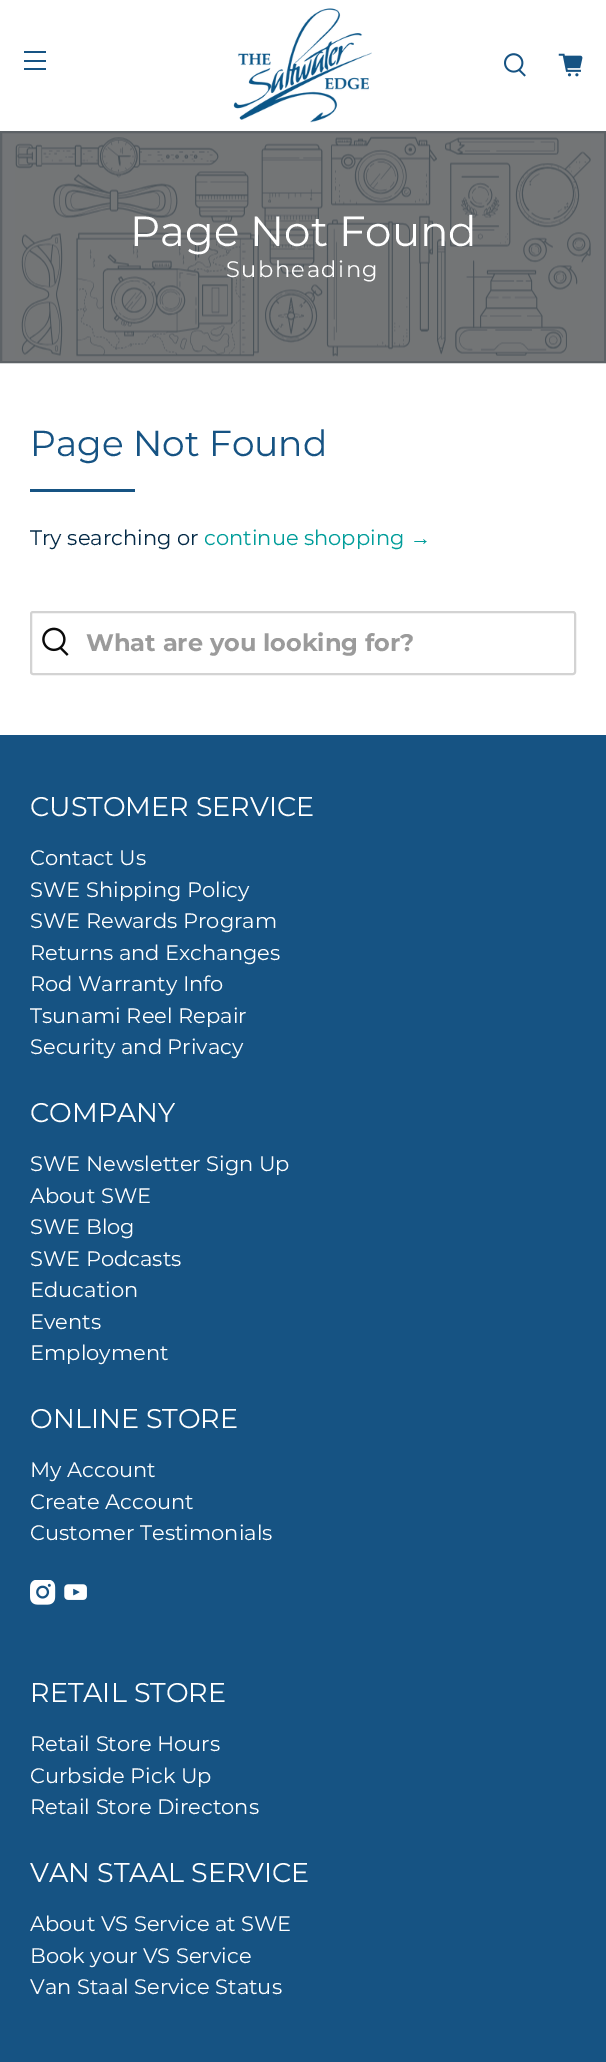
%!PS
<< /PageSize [606 2062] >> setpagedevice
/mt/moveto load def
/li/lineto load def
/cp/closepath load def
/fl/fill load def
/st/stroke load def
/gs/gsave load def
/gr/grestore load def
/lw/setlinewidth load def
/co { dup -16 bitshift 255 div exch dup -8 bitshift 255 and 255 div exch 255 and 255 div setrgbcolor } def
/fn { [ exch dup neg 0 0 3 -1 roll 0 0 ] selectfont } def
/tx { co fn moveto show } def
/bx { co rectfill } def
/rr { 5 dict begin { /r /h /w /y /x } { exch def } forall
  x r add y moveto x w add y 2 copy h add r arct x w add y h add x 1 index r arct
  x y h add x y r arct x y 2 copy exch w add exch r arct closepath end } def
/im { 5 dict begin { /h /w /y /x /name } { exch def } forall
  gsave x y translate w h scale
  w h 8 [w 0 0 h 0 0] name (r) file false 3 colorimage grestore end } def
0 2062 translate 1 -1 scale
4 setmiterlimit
0 0 606 2062 16#FFFFFF bx
24 51 22 2 16#165383 bx
24 60 22 2 16#165383 bx
24 68 22 2 16#165383 bx
(media/1.raw) 233 8 139 115 im
(media/2.raw) 504 53 22 24 im
(media/3.raw) 558 53 25 24 im
16#737577 co
1 132 mt 605 132 li 605 362 li 1 362 li cp gs fl gr
16#5D6266 co
2 lw
st
(media/4.raw) 15 136 576 221 im
30 489 105 3 16#165383 bx
16#D3D3D3 co
31 612 544 62 2 rr st
(media/5.raw) 42 627 27 29 im
0 735 606 1327 16#165383 bx
(media/6.raw) 30 1580 26 25 im
(media/7.raw) 64 1584 23 16 im
(Page Not Found) 130 246 /Montserrat-Thin 42 16#FFFFFF tx
/Montserrat-Thin 22.5 fn
226 277 mt 1.5 0 (Subheading) ashow
(Page Not Found) 30 456 /Montserrat-Thin 36 16#165383 tx
(Try searching or) 30 545 /Montserrat-Thin 21 16#042A47 tx
(continue shopping) 204 545 /Montserrat-Thin 21 16#009D9A tx
(→) 410 545 /LiberationSans-Regular 21 16#009D9A tx
(What are you looking for?) 86 651 /Montserrat-Bold 24 16#9B9B9B tx
(CUSTOMER SERVICE) 30 816 /Montserrat-Thin 27 16#FFFFFF tx
(Contact Us) 30 865 /Montserrat-Thin 21 16#FFFFFF tx
(SWE Shipping Policy) 30 897 /Montserrat-Thin 21 16#FFFFFF tx
(SWE Rewards Program) 30 928 /Montserrat-Thin 21 16#FFFFFF tx
(Returns and Exchanges) 30 960 /Montserrat-Thin 21 16#FFFFFF tx
(Rod Warranty Info) 30 991 /Montserrat-Thin 21 16#FFFFFF tx
(Tsunami Reel Repair) 30 1023 /Montserrat-Thin 21 16#FFFFFF tx
(Security and Privacy) 30 1054 /Montserrat-Thin 21 16#FFFFFF tx
(COMPANY) 30 1122 /Montserrat-Thin 27 16#FFFFFF tx
(SWE Newsletter Sign Up) 30 1171 /Montserrat-Thin 21 16#FFFFFF tx
(About SWE) 30 1203 /Montserrat-Thin 21 16#FFFFFF tx
(SWE Blog) 30 1234 /Montserrat-Thin 21 16#FFFFFF tx
(SWE Podcasts) 30 1266 /Montserrat-Thin 21 16#FFFFFF tx
(Education) 30 1297 /Montserrat-Thin 21 16#FFFFFF tx
(Events) 30 1329 /Montserrat-Thin 21 16#FFFFFF tx
(Employment) 30 1360 /Montserrat-Thin 21 16#FFFFFF tx
(ONLINE STORE) 30 1428 /Montserrat-Thin 27 16#FFFFFF tx
(My Account) 30 1477 /Montserrat-Thin 21 16#FFFFFF tx
(Create Account) 30 1509 /Montserrat-Thin 21 16#FFFFFF tx
(Customer Testimonials) 30 1540 /Montserrat-Thin 21 16#FFFFFF tx
(RETAIL STORE) 30 1702 /Montserrat-Thin 27 16#FFFFFF tx
(Retail Store Hours) 30 1751 /Montserrat-Thin 21 16#FFFFFF tx
(Curbside Pick Up) 30 1783 /Montserrat-Thin 21 16#FFFFFF tx
(Retail Store Directons) 30 1814 /Montserrat-Thin 21 16#FFFFFF tx
(VAN STAAL SERVICE) 30 1882 /Montserrat-Thin 27 16#FFFFFF tx
(About VS Service at SWE) 30 1931 /Montserrat-Thin 21 16#FFFFFF tx
(Book your VS Service) 30 1963 /Montserrat-Thin 21 16#FFFFFF tx
(Van Staal Service Status) 30 1994 /Montserrat-Thin 21 16#FFFFFF tx
showpage
